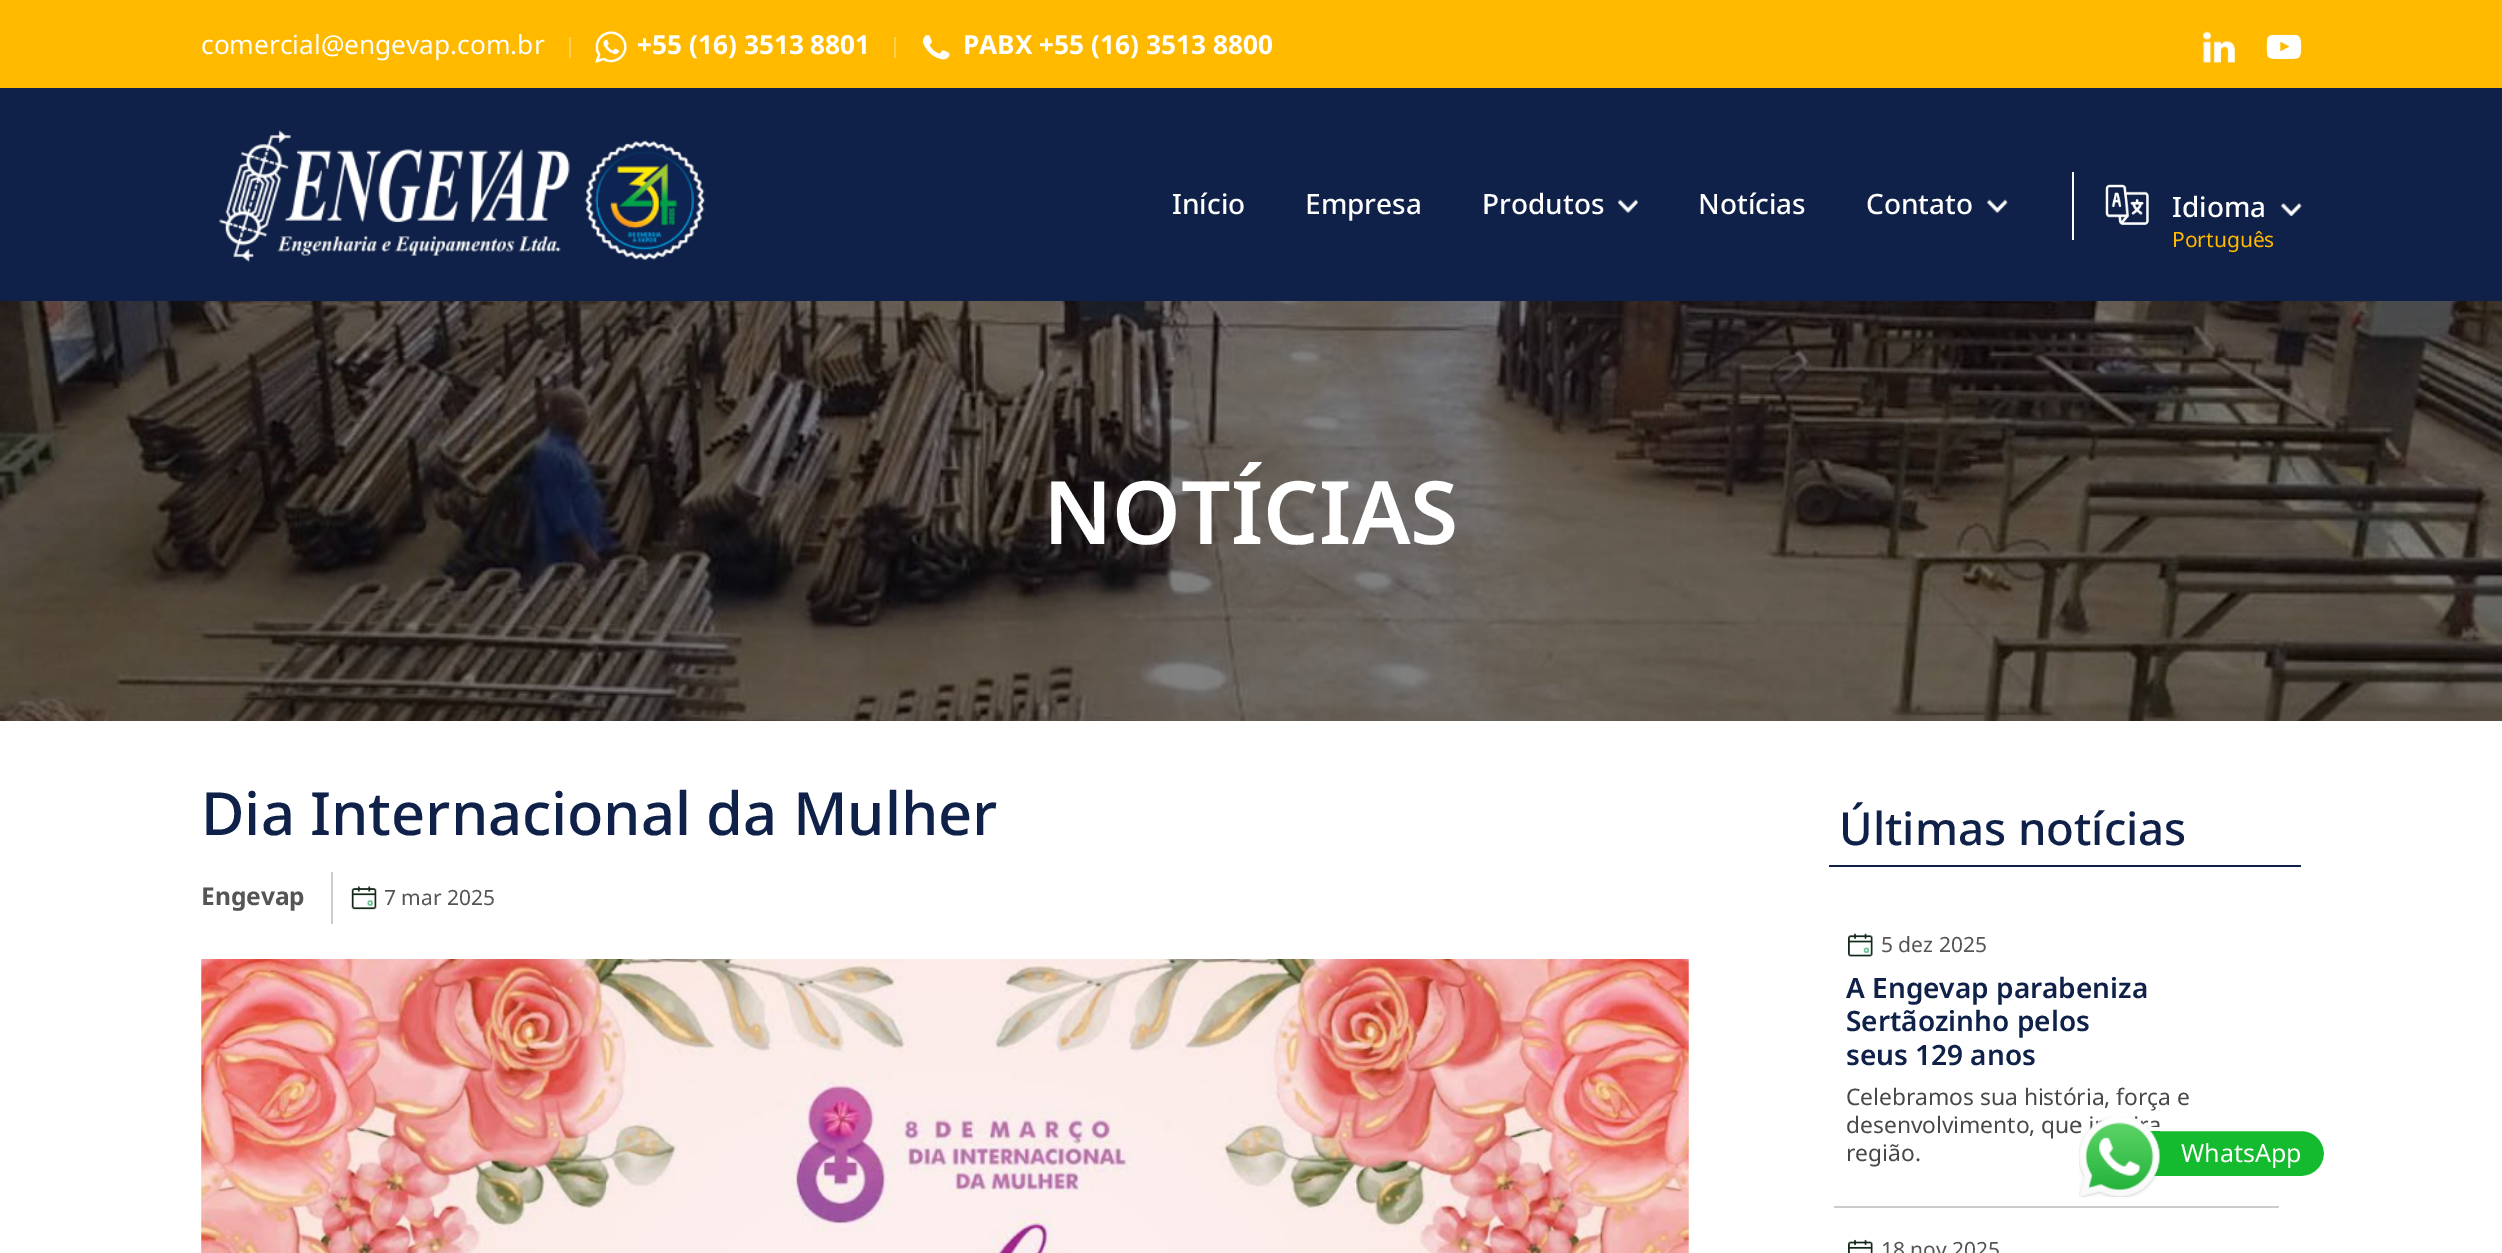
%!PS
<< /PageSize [2502 1253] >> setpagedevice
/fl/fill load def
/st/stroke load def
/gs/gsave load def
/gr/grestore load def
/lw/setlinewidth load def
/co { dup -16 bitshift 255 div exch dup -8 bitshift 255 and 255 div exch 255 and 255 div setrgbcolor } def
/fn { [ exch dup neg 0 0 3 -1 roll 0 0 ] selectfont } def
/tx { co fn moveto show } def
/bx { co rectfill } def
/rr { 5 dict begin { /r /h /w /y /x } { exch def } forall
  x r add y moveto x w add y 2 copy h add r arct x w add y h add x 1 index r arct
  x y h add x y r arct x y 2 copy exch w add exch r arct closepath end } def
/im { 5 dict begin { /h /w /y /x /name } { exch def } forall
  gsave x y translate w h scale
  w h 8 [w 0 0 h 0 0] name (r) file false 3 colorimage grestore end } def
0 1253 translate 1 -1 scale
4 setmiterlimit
0 0 2502 1253 16#FFFFFF bx
0 0 2502 88 16#FFBA00 bx
569 37 2 21 16#FFCF4D bx
(media/1.raw) 595 31 32 32 im
894 37 2 21 16#FFCF4D bx
(media/2.raw) 922 34 28 26 im
(media/3.raw) 2203 31 32 32 im
(media/4.raw) 2266 34 36 26 im
0 88 2502 213 16#0F2148 bx
(media/5.raw) 219 129 486 134 im
(media/6.raw) 1617 199 21 14 im
(media/7.raw) 1986 199 22 15 im
2072 172 2 68 16#FFFFFF bx
(media/8.raw) 2105 184 44 41 im
(media/9.raw) 2280 203 22 14 im
(media/10.raw) 0 301 2502 420 im
331 872 2 52 16#CCCCCC bx
(media/11.raw) 351 886 26 24 im
(media/12.raw) 201 959 1488 294 im
1829 865 472 2 16#0F2148 bx
1834 1206 445 2 16#CCCCCC bx
(media/13.raw) 1848 933 25 24 im
(media/14.raw) 1848 1239 25 14 im
16#14BB2E co
2113 1129 213 49 24.5 rr gs fl gr
16#FFFFFF co
4 lw
st
(comercial@engevap.com.br) 201 54 /NotoSans-Regular 26.25 16#FFFFFF tx
(+55 \(16\) 3513 8801) 637 54 /NotoSans-Bold 26.25 16#FFFFFF tx
(PABX +55 \(16\) 3513 8800) 963 54 /NotoSans-Bold 26.25 16#FFFFFF tx
(Início) 1172 214 /NotoSans-Medium 28 16#FFFFFF tx
(Empresa) 1305 214 /NotoSans-Medium 28 16#FFFFFF tx
(Produtos) 1482 214 /NotoSans-Medium 28 16#FFFFFF tx
(Notícias) 1698 214 /NotoSans-Medium 28 16#FFFFFF tx
(Contato) 1866 214 /NotoSans-Medium 28 16#FFFFFF tx
(Idioma) 2172 217 /NotoSans-Medium 28 16#FFFFFF tx
(Português) 2172 247 /NotoSans-Regular 21 16#FFBA00 tx
(NOTÍCIAS) 1043 544 /NotoSans-SemiBold 87.5 16#FFFFFF tx
(Dia Internacional da Mulher) 201 835 /NotoSans-Medium 59.5 16#0F2148 tx
(Engevap) 201 905 /NotoSans-Bold 24.5 16#555555 tx
(7 mar 2025) 384 905 /NotoSans-Regular 21 16#555555 tx
(Últimas notícias) 1839 845 /NotoSans-Medium 45.5 16#0F2148 tx
(5 dez 2025) 1881 952 /NotoSans-Regular 21 16#555555 tx
(A Engevap parabeniza) 1846 998 /NotoSans-SemiBold 28 16#0F2148 tx
(Sertãozinho pelos) 1846 1031 /NotoSans-SemiBold 28 16#0F2148 tx
(seus 129 anos) 1846 1065 /NotoSans-SemiBold 28 16#0F2148 tx
(Celebramos sua história, força e) 1846 1105 /NotoSans-Regular 22.75 16#484848 tx
(desenvolvimento, que) 1846 1133 /NotoSans-Regular 22.75 16#484848 tx
(região.) 1846 1161 /NotoSans-Regular 22.75 16#484848 tx
(18 nov 2025) 1881 1257 /NotoSans-Regular 21 16#555555 tx
(media/15.raw) 2079 1116 81 81 im
(WhatsApp) 2181 1162 /NotoSans-Regular 25 16#FFFFFF tx
showpage
